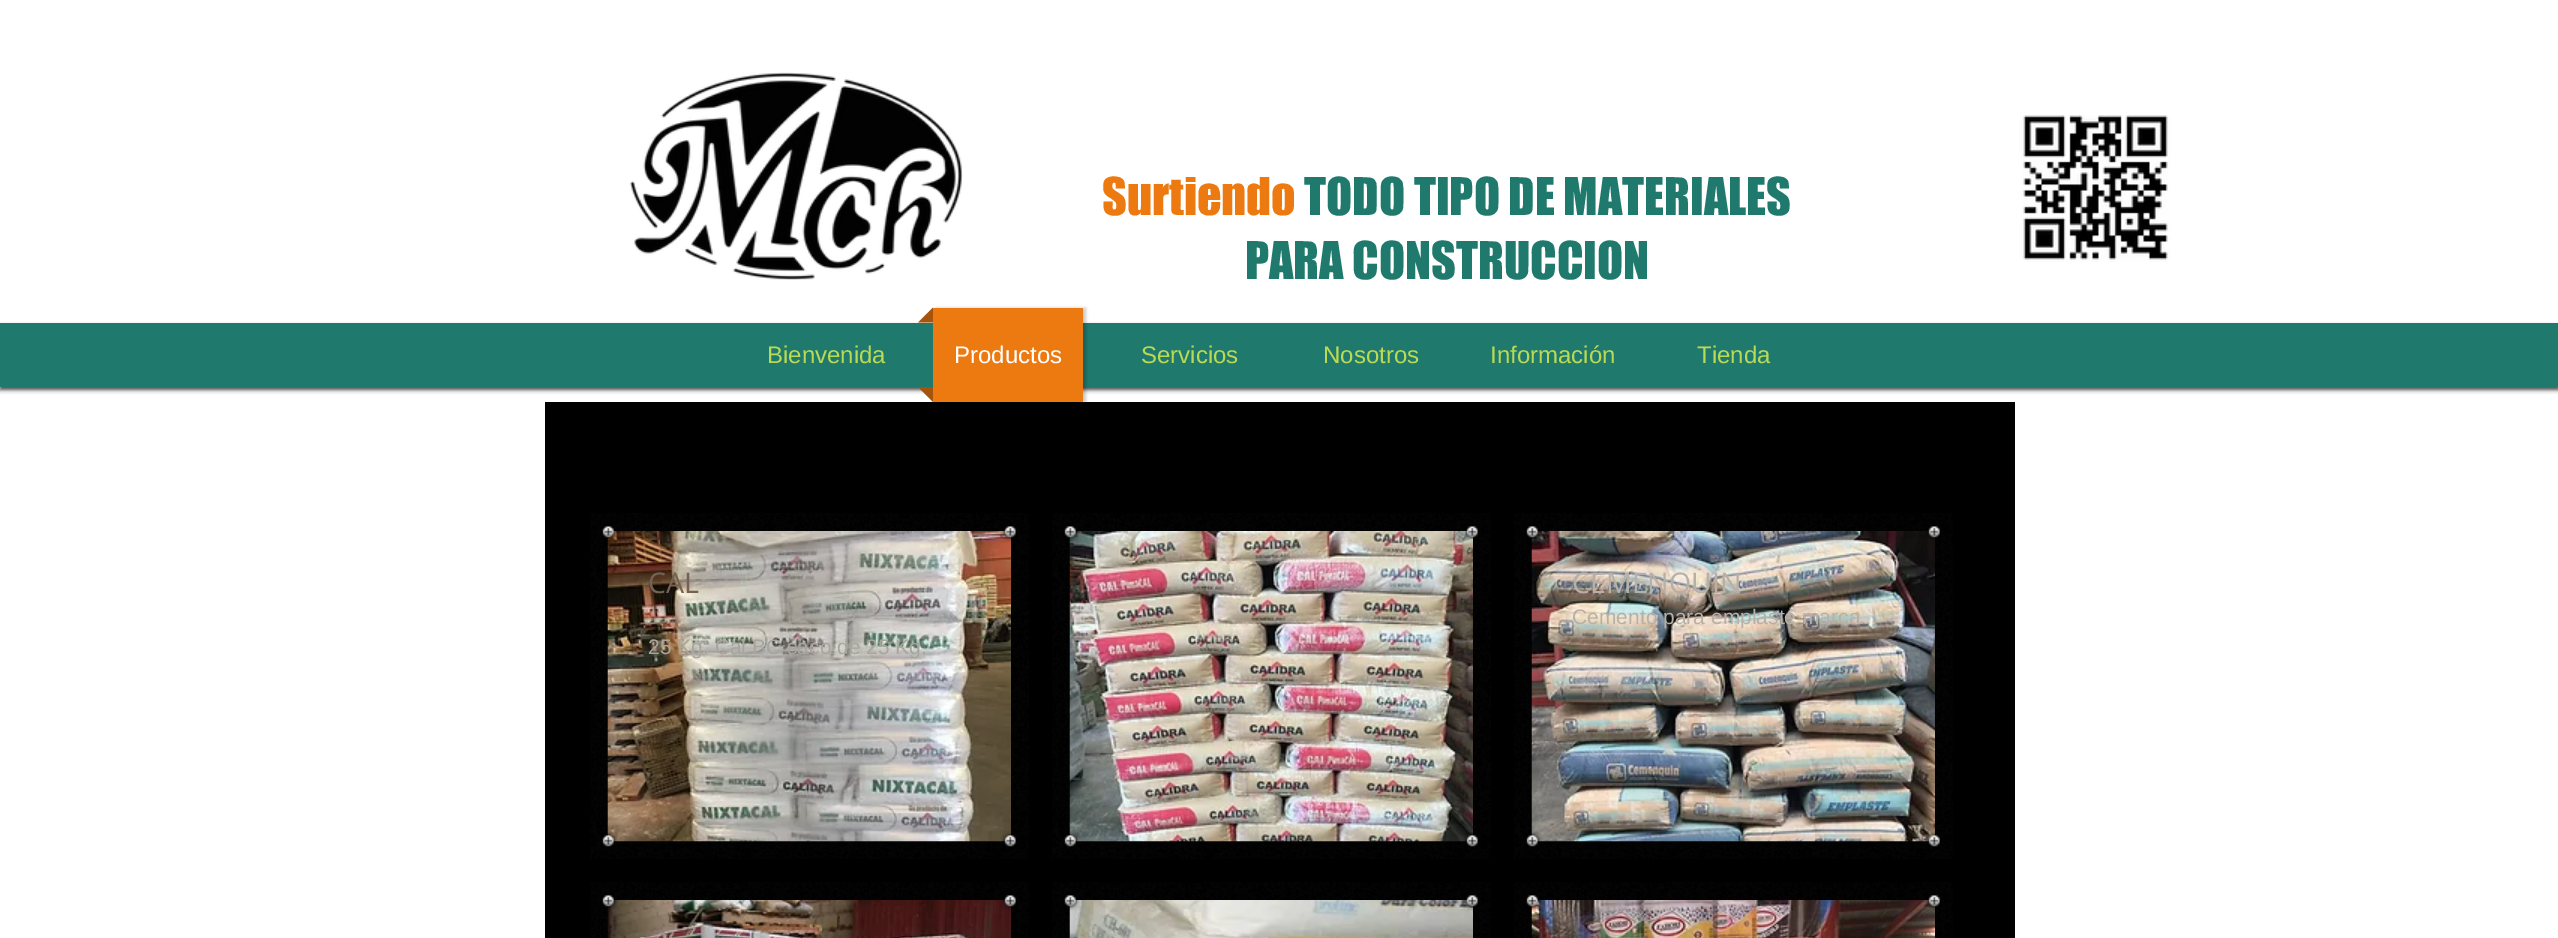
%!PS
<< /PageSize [2558 938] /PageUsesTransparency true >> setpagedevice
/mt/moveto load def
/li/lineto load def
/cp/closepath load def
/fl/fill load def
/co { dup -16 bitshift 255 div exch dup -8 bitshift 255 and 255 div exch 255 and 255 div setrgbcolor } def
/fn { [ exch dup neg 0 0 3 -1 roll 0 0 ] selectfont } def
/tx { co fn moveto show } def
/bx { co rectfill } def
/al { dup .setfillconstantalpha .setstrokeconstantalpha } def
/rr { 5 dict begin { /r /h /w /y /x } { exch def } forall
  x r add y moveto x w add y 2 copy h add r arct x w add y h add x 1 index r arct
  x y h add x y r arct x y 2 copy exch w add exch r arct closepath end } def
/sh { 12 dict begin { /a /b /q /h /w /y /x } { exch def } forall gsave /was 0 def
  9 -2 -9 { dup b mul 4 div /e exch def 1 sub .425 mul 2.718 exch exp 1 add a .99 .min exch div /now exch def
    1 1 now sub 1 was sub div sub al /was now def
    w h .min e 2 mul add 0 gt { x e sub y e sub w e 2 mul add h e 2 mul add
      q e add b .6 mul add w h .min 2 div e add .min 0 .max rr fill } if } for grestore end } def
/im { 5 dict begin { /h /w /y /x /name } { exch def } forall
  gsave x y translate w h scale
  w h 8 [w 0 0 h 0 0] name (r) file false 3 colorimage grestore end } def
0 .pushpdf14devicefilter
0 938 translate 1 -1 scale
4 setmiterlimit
0 0 2558 938 16#FFFFFF bx
(media/1.raw) 629 72 334 208 im
(media/2.raw) 2021 115 149 147 im
16#000000 co
0 326 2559 64 0 2 .7 sh
0 323 2558 64 16#1F796C bx
16#000000 co
936 308 150 94 0 1.5 .2 sh
16#A5550B co
933 322.5 mt 918 322.5 li 933 307.5 li cp fl
933 308 150 94 16#EC7A10 bx
16#A5550B co
918 387 mt 933 387 li 933 402 li cp fl
545 402 1470 536 16#000000 bx
(media/4.raw) 590 513 439 346 im
(media/6.raw) 607 531 404 311 im
(media/3.raw) 1000 526 16 16 im
(media/5.raw) 602 526 16 15 im
(media/7.raw) 1001 831 15 16 im
(media/8.raw) 602 831 16 16 im
(media/9.raw) 1052 513 439 346 im
(media/11.raw) 1069 531 404 311 im
(media/10.raw) 1064 526 16 16 im
(media/12.raw) 1463 832 15 15 im
(media/13.raw) 1462 526 16 16 im
(media/14.raw) 1064 831 16 16 im
(media/4.raw) 1514 513 439 346 im
(media/17.raw) 1531 531 404 311 im
(media/15.raw) 1927 526 13 13 im
(media/16.raw) 1526 526 15 14 im
(media/18.raw) 1924 831 16 16 im
(media/19.raw) 1526 831 16 16 im
(media/20.raw) 590 882 439 56 im
(media/22.raw) 607 900 404 38 im
(media/21.raw) 602 895 16 14 im
(media/23.raw) 1001 895 15 15 im
(media/24.raw) 1052 882 439 56 im
(media/26.raw) 1069 900 404 38 im
(media/25.raw) 1064 895 17 16 im
(media/27.raw) 1462 895 16 16 im
(media/20.raw) 1514 882 439 56 im
(media/29.raw) 1531 900 404 38 im
(media/28.raw) 1526 895 16 16 im
(media/30.raw) 1924 895 16 15 im
(Surtiendo) 1102 215 /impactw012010-Regular 48 16#EC7A10 tx
(TODO TIPO DE MATERIALES) 1304 215 /impactw012010-Regular 48 16#1F796C tx
(PARA CONSTRUCCION) 1245 279 /impactw012010-Regular 48 16#1F796C tx
(Bienvenida) 767 363 /LiberationSans-Regular 24 16#BADA55 tx
(Productos) 954 363 /LiberationSans-Regular 24 16#FFFFFF tx
(Servicios) 1141 363 /LiberationSans-Regular 24 16#BADA55 tx
(Nosotros) 1323 363 /LiberationSans-Regular 24 16#BADA55 tx
(Información) 1490 363 /LiberationSans-Regular 24 16#BADA55 tx
(Tienda) 1697 363 /LiberationSans-Regular 24 16#BADA55 tx
(CAL) 648 593 /OpenSans-Regular 28.5 16#746353 tx
(25 Kg. Cal BC saco de 25 Kg.) 648 654 /LiberationSans-Regular 21 16#A7A59C tx
(CEMENQUÍN) 1572 593 /OpenSans-Regular 28.5 16#B6B0A8 tx
(Cemento para emplaste marca) 1572 624 /LiberationSans-Regular 21 16#B6B0A8 tx
.poppdf14devicefilter showpage
